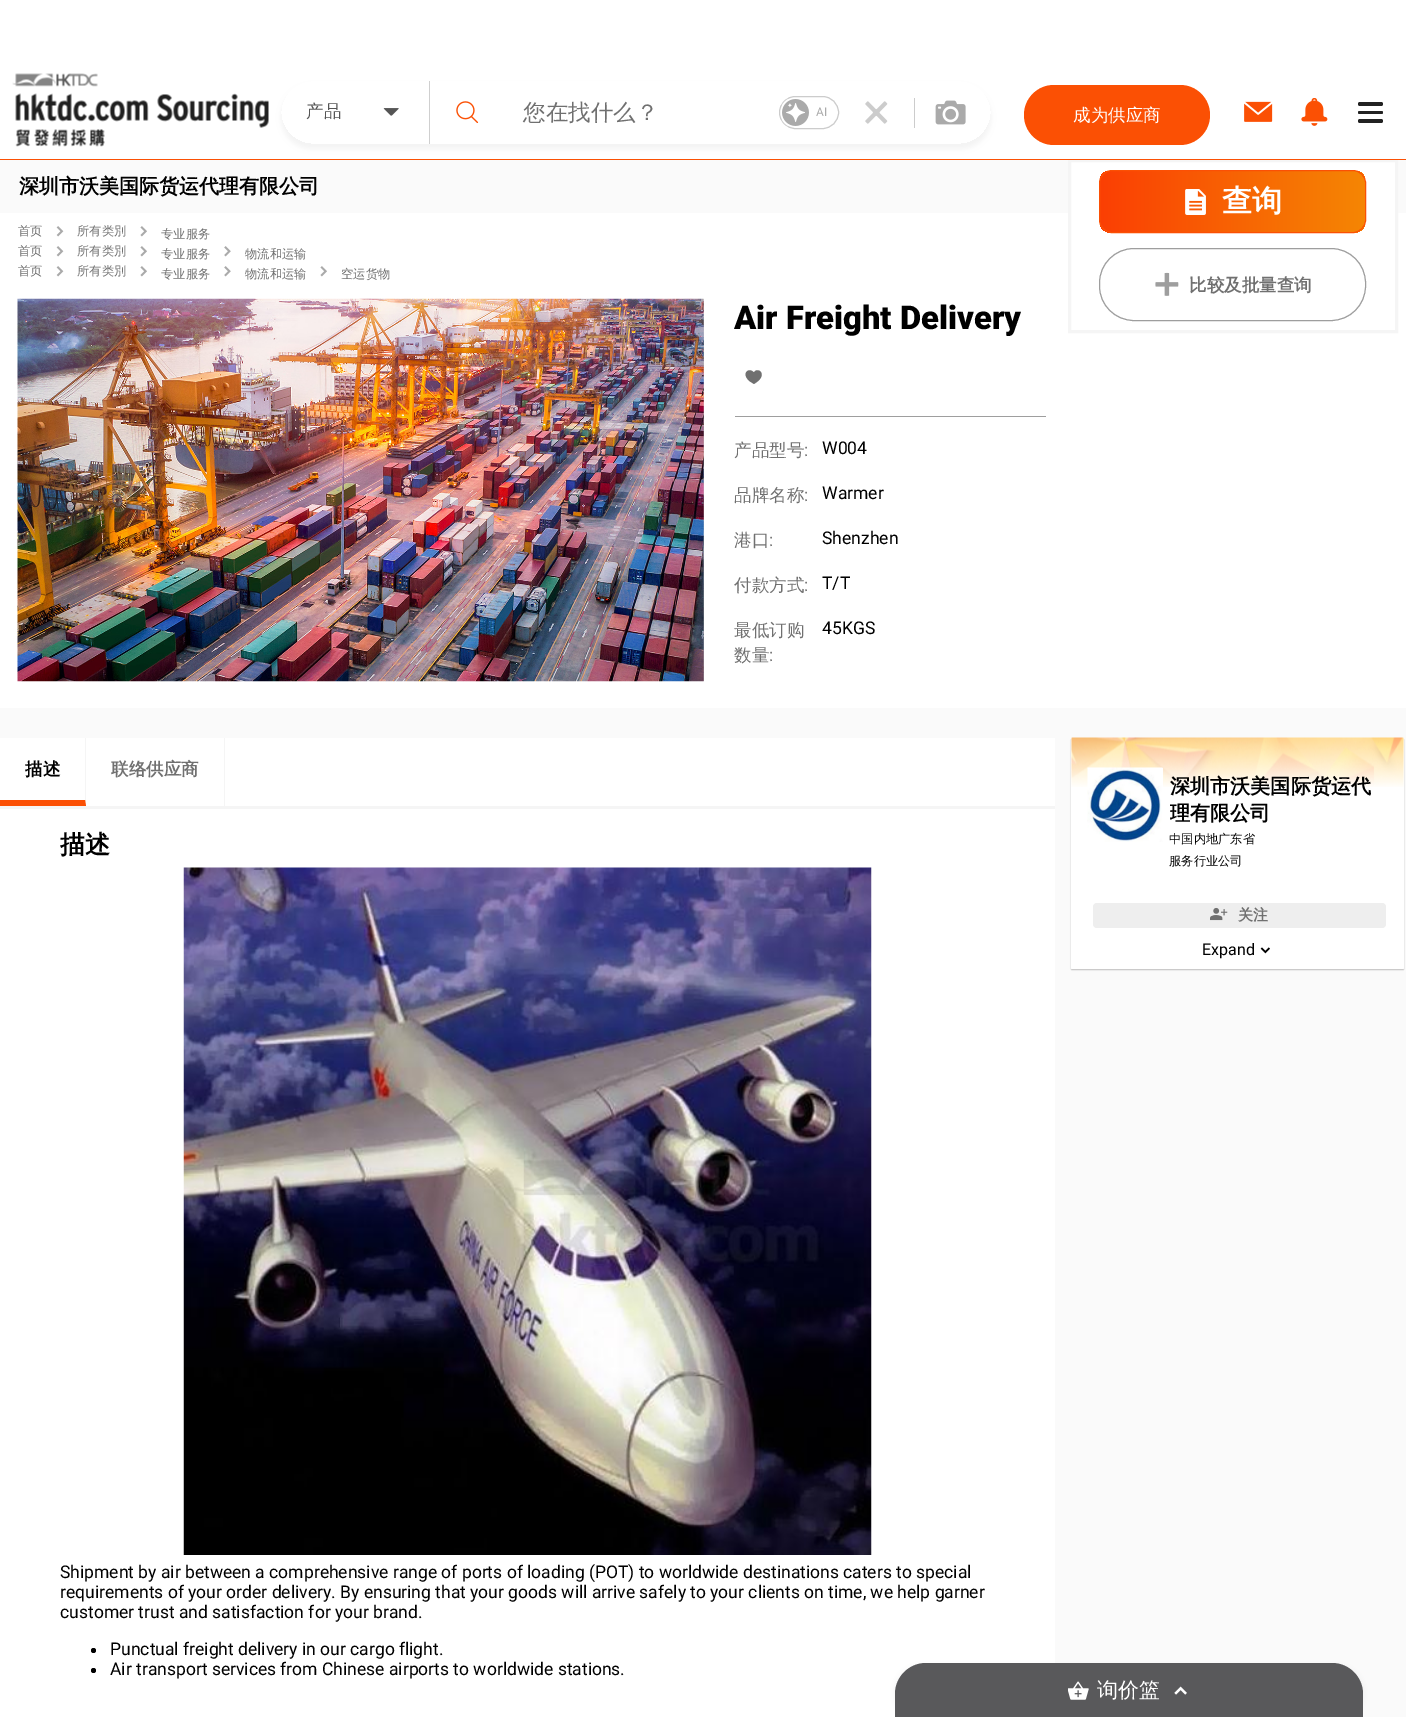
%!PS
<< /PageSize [1406 1717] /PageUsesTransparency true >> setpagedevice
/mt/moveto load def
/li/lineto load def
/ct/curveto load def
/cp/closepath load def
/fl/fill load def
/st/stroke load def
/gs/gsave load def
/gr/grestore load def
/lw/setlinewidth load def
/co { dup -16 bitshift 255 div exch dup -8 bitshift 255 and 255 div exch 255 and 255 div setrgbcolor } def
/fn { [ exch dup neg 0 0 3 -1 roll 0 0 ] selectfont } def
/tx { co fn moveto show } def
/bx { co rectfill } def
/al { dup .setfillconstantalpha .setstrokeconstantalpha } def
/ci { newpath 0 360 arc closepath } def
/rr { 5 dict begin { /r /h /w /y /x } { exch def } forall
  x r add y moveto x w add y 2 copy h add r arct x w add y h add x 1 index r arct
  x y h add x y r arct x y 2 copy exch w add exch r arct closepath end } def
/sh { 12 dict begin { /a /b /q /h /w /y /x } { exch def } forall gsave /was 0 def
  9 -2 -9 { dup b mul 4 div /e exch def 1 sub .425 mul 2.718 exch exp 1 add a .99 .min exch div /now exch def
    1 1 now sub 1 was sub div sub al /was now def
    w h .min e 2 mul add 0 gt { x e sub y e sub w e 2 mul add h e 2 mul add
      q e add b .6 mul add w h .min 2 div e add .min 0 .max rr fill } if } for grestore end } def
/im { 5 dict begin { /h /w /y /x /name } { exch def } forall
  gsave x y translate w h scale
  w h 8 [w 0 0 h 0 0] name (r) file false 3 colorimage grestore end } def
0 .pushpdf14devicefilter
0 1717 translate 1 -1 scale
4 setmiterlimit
0 0 1406 1717 16#FFFFFF bx
0 160 1406 53 16#FAFAFA bx
1071 162 324 51 16#FFFFFF bx
16#F5F5F5 co
3 lw
1069.5 160.5 327 171 rectstroke
0 159 1406 1 16#FB5004 bx
(media/1.raw) 12 73 257 74 im
gs
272 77 mt 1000 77 li 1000 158 li 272 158 li cp 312.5 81 mt 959.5 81 li 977 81 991 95 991 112.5 ct 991 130 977 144 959.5 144 ct 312.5 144 li 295 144 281 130 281 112.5 ct 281 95 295 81 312.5 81 ct cp eoclip newpath
16#7F7F7F co
281 86 710 63 31.5 2.5 .1 sh
gr
429 81 1 63 16#CFCFCF bx
(media/2.raw) 383 108 16 8 im
(media/3.raw) 456 101 23 22 im
16#CCCCCC co
1 lw
779.5 96.5 59 32 16 rr st
(media/4.raw) 782 99 27 27 im
(media/5.raw) 865 101 23 23 im
914 98 1 30 16#CCCCCC bx
(media/6.raw) 935 100 31 25 im
16#FB5004 co
1024 85 186 60 30 rr fl
(media/7.raw) 1244 101 29 21 im
(media/8.raw) 1301 98 27 28 im
16#222222 co
1358 102 25 4 2 rr fl
1358 111 25 3 1.5 rr fl
1358 119 25 4 2 rr fl
gs
1099 170 267 63 13 rr clip newpath
gs 1100 171 mt 1365 171 li 1365 231 li 1100 231 li cp clip newpath
<< /ShadingType 2 /ColorSpace /DeviceRGB /Coords [1365 202 1100 201] /Extend [true true] /Function << /FunctionType 2 /Domain [0 1] /C0 [.961 .525 .012] /C1 [.984 .247 .016] /N 1 >> >> shfill gr
gs 1100 231 mt 1365 231 li 1365 233 li 1100 233 li cp clip newpath
<< /ShadingType 2 /ColorSpace /DeviceRGB /Coords [1365 262 1100 261] /Extend [true true] /Function << /FunctionType 2 /Domain [0 1] /C0 [.961 .525 .012] /C1 [.984 .247 .016] /N 1 >> >> shfill gr
gr
16#FB5004 co
1099.5 170.5 266 62 12.5 rr st
(media/9.raw) 1185 189 21 26 im
16#9E9E9E co
1099.5 248.5 266 72 34.5 rr st
(media/10.raw) 1155 272 24 24 im
(media/11.raw) 56 226 8 11 im
(media/12.raw) 140 226 7 11 im
(media/11.raw) 56 246 8 11 im
(media/12.raw) 140 246 7 11 im
(media/13.raw) 224 246 7 11 im
(media/11.raw) 56 266 8 11 im
(media/12.raw) 140 266 7 11 im
(media/13.raw) 224 266 7 11 im
(media/12.raw) 320 266 7 11 im
(media/14.raw) 17 298 687 384 im
16#707070 co
754 372.5 mt 757 366.5 767.5 373.5 757.5 381.5 ct 754 384 li 750 381.5 li 740.5 374 748.5 366.5 754 372.5 ct cp fl
735 416 311 1 16#9E9E9E bx
0 708 1406 1009 16#FAFAFA bx
0 738 1055 979 16#FFFFFF bx
0 806 1055 3 16#F5F5F5 bx
86 738 mt 86 806 li 85 800 li 85 738 li cp fl
16#FB5004 co
86 806 mt 0 806 li 0 800 li 85 800 li cp fl
224 738 1 68 16#F5F5F5 bx
(media/15.raw) 183 867 689 688 im
16#000000 co
93.5 1650.5 2.5 ci fl
93.5 1670.5 2.5 ci fl
16#070001 co
1071 739 333 231 1 .5 .22 sh
16#FFFFFF co
1071 738 333 231 1 rr fl
(media/16.raw) 1071 737 333 50 im
1088 768 75 19 16#FFFFFF bx
(media/17.raw) 1087 767 76 75 im
16#EEEEEE co
1093 903 293 25 4 rr fl
(media/18.raw) 1210 907 18 14 im
(media/19.raw) 1260 947 10 7 im
16#000000 co
895 1666 468 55 31 3 .06 sh
16#59595B co
926 1663 mt 1332 1663 li 1349 1663 1363 1677 1363 1694 ct 1363 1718 li 895 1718 li 895 1694 li 895 1677 909 1663 926 1663 ct cp fl
(media/20.raw) 1068 1681 21 19 im
(media/21.raw) 1174 1686 13 9 im
(产品) 306 117 /WenQuanYiZenHei-Medium 17.5 16#555555 tx
(您在找什么？) 523 120 /WenQuanYiZenHei-Medium 22.5 16#707070 tx
(AI) 816 116 /Roboto-Regular 12 16#AAAAAA tx
(成为供应商) 1073 121 /WenQuanYiZenHei-Medium 17.5 16#FFFFFF tx
(深圳市沃美国际货运代理有限公司) 19 193 /WenQuanYiZenHei-Bold 20 16#000000 tx
(查询) 1222 211 /WenQuanYiZenHei-Bold 30 16#FFFFFF tx
(比较及批量查询) 1189 291 /WenQuanYiZenHei-Bold 17.5 16#707070 tx
(首页) 18 235 /WenQuanYiZenHei-Medium 12.25 16#707070 tx
(所有类別) 77 235 /WenQuanYiZenHei-Medium 12.25 16#707070 tx
(专业服务) 161 238 /WenQuanYiZenHei-Medium 12.25 16#707070 tx
(首页) 18 255 /WenQuanYiZenHei-Medium 12.25 16#707070 tx
(所有类別) 77 255 /WenQuanYiZenHei-Medium 12.25 16#707070 tx
(专业服务) 161 258 /WenQuanYiZenHei-Medium 12.25 16#707070 tx
(物流和运输) 245 258 /WenQuanYiZenHei-Medium 12.25 16#707070 tx
(首页) 18 275 /WenQuanYiZenHei-Medium 12.25 16#707070 tx
(所有类別) 77 275 /WenQuanYiZenHei-Medium 12.25 16#707070 tx
(专业服务) 161 278 /WenQuanYiZenHei-Medium 12.25 16#707070 tx
(物流和运输) 245 278 /WenQuanYiZenHei-Medium 12.25 16#707070 tx
(空运货物) 341 278 /WenQuanYiZenHei-Medium 12.25 16#707070 tx
(Air Freight Delivery) 734 329 /Roboto-Black 32.75 16#000000 tx
(产品型号) 734 456 /WenQuanYiZenHei-Medium 17.5 16#707070 tx
(:) 804 456 /Roboto-Regular 17.5 16#707070 tx
(W004) 822 454 /Roboto-Regular 17.5 16#000000 tx
(品牌名称) 734 501 /WenQuanYiZenHei-Medium 17.5 16#707070 tx
(:) 804 501 /Roboto-Regular 17.5 16#707070 tx
(Warmer) 822 499 /Roboto-Regular 17.5 16#000000 tx
(港口) 734 546 /WenQuanYiZenHei-Medium 17.5 16#707070 tx
(:) 769 546 /Roboto-Regular 17.5 16#707070 tx
(Shenzhen) 822 544 /Roboto-Regular 17.5 16#000000 tx
(付款方式) 734 591 /WenQuanYiZenHei-Medium 17.5 16#707070 tx
(:) 804 591 /Roboto-Regular 17.5 16#707070 tx
(T/T) 822 589 /Roboto-Regular 17.5 16#000000 tx
(最低订购) 734 636 /WenQuanYiZenHei-Medium 17.5 16#707070 tx
(数量) 734 661 /WenQuanYiZenHei-Medium 17.5 16#707070 tx
(:) 769 661 /Roboto-Regular 17.5 16#707070 tx
(45KGS) 822 634 /Roboto-Regular 17.5 16#000000 tx
(描述) 25 775 /WenQuanYiZenHei-Bold 17.5 16#000000 tx
(联络供应商) 111 775 /WenQuanYiZenHei-Bold 17.5 16#707070 tx
(描述) 60 853 /WenQuanYiZenHei-Bold 25 16#000000 tx
(Shipment by air between a comprehensive range of ports of loading \(POT\) to worldwide destinations caters to special) 60 1578 /Roboto-Regular 17.5 16#000000 tx
(requirements of your order delivery. By ensuring that your goods will arrive safely to your clients on time, we help garner) 60 1598 /Roboto-Regular 17.5 16#000000 tx
(customer trust and satisfaction for your brand.) 60 1618 /Roboto-Regular 17.5 16#000000 tx
(Punctual freight delivery in our cargo flight.) 110 1655 /Roboto-Regular 17.5 16#000000 tx
(Air transport services from Chinese airports to worldwide stations.) 110 1675 /Roboto-Regular 17.5 16#000000 tx
(深圳市沃美国际货运代) 1170 793 /WenQuanYiZenHei-Bold 20.1 16#000000 tx
(理有限公司) 1170 820 /WenQuanYiZenHei-Bold 20.1 16#000000 tx
(中国内地广东省) 1169 843 /WenQuanYiZenHei-Medium 12.25 16#000000 tx
(服务行业公司) 1169 865 /WenQuanYiZenHei-Medium 12.25 16#000000 tx
(关注) 1238 920 /WenQuanYiZenHei-Bold 15 16#707070 tx
(Expand) 1202 955 /Roboto-Regular 16 16#000000 tx
(询价篮) 1097 1697 /WenQuanYiZenHei-Medium 21 16#FFFFFF tx
.poppdf14devicefilter showpage
